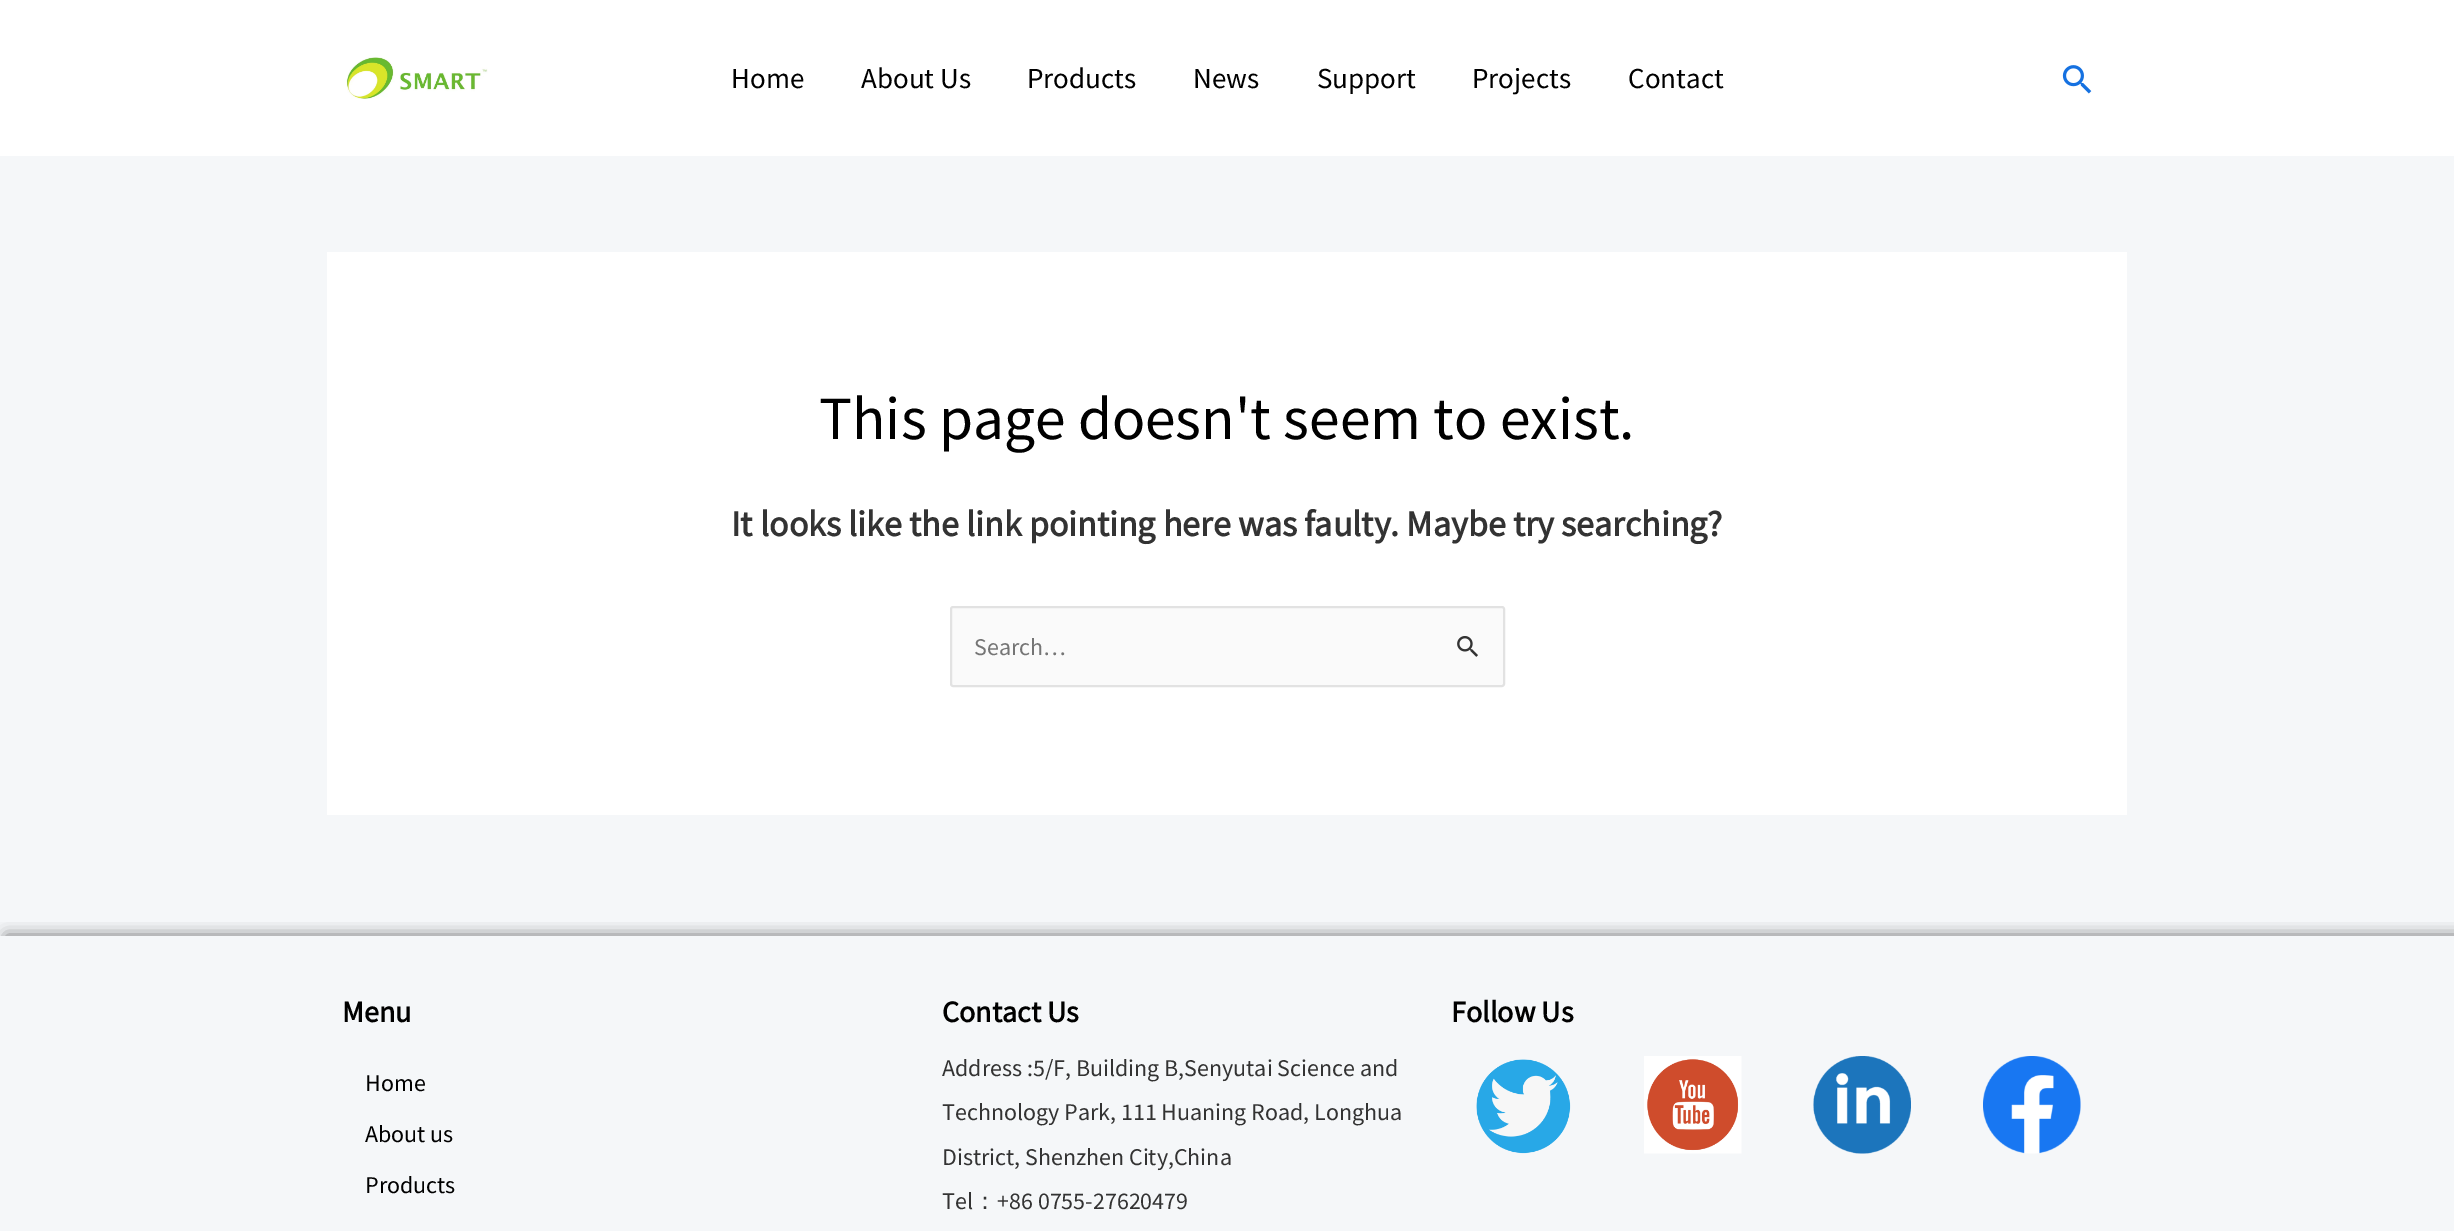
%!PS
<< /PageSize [2454 1231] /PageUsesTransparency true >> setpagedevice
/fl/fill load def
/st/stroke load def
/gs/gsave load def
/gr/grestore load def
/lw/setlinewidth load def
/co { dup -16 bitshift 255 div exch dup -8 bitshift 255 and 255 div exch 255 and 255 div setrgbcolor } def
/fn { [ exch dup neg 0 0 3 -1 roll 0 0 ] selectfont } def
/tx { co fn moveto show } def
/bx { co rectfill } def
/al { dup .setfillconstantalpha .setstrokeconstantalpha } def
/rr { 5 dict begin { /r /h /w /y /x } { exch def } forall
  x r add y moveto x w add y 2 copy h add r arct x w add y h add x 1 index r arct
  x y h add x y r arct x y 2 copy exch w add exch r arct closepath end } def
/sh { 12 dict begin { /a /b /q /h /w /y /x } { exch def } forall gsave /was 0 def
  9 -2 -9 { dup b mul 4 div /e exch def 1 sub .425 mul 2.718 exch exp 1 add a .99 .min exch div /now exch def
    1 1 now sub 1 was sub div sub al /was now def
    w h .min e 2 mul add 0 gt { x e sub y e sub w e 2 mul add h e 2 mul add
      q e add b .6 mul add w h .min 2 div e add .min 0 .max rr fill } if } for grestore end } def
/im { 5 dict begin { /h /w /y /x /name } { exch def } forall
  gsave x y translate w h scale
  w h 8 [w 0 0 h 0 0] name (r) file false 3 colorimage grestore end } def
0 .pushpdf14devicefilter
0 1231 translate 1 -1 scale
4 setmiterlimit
0 0 2454 1231 16#F5F7F9 bx
0 0 2454 156 16#FFFFFF bx
(media/1.raw) 346 57 142 42 im
(media/2.raw) 2062 65 30 29 im
327 252 1800 563 16#FFFFFF bx
16#FAFAFA co
951 607 553 79 2 rr gs fl gr
16#E2E2E2 co
2 lw
st
(media/3.raw) 1457 636 21 21 im
gs
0 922 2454 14 rectclip
16#000000 co
6 935 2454 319 0 7.5 .5 sh
gr
(media/4.raw) 1476 1059 95 95 im
(media/5.raw) 1644 1056 98 98 im
(media/6.raw) 1813 1056 98 98 im
(media/7.raw) 1983 1056 98 98 im
(Home) 731 88 /SourceSansPro-Regular 29 16#000000 tx
(About Us) 861 88 /SourceSansPro-Regular 29 16#000000 tx
(Products) 1027 88 /SourceSansPro-Regular 29 16#000000 tx
(News) 1193 88 /SourceSansPro-Regular 29 16#000000 tx
(Support) 1317 88 /SourceSansPro-Regular 29 16#000000 tx
(Projects) 1472 88 /SourceSansPro-Regular 29 16#000000 tx
(Contact) 1628 88 /SourceSansPro-Regular 29 16#000000 tx
(This page doesn't seem to exist.) 819 439 /SourceSansPro-Regular 61.5 16#000000 tx
(It looks like the link pointing here was faulty. Maybe try searching?) 731 536 /SourceSansPro-Bold 36 16#333333 tx
(Search…) 974 655 /SourceSansPro-Regular 24 16#757575 tx
(Menu) 342 1022 /SourceSansPro-Bold 30 16#000000 tx
(Home) 365 1091 /SourceSansPro-Regular 24 16#000000 tx
(About us) 365 1142 /SourceSansPro-Regular 24 16#000000 tx
(Products) 365 1193 /SourceSansPro-Regular 24 16#000000 tx
(Contact Us) 942 1022 /SourceSansPro-Bold 30 16#000000 tx
(Address :5/F, Building B,Senyutai Science and) 942 1076 /SourceSansPro-Regular 24 16#333333 tx
(Technology Park, 111 Huaning Road, Longhua) 942 1120 /SourceSansPro-Regular 24 16#333333 tx
(District, Shenzhen City,China) 942 1165 /SourceSansPro-Regular 24 16#333333 tx
(Tel) 942 1209 /SourceSansPro-Regular 24 16#333333 tx
(：) 973 1209 /WenQuanYiZenHei-Medium 24 16#333333 tx
(+86 0755-27620479) 997 1209 /SourceSansPro-Regular 24 16#333333 tx
(Follow Us) 1451 1022 /SourceSansPro-Bold 30 16#000000 tx
.poppdf14devicefilter showpage
